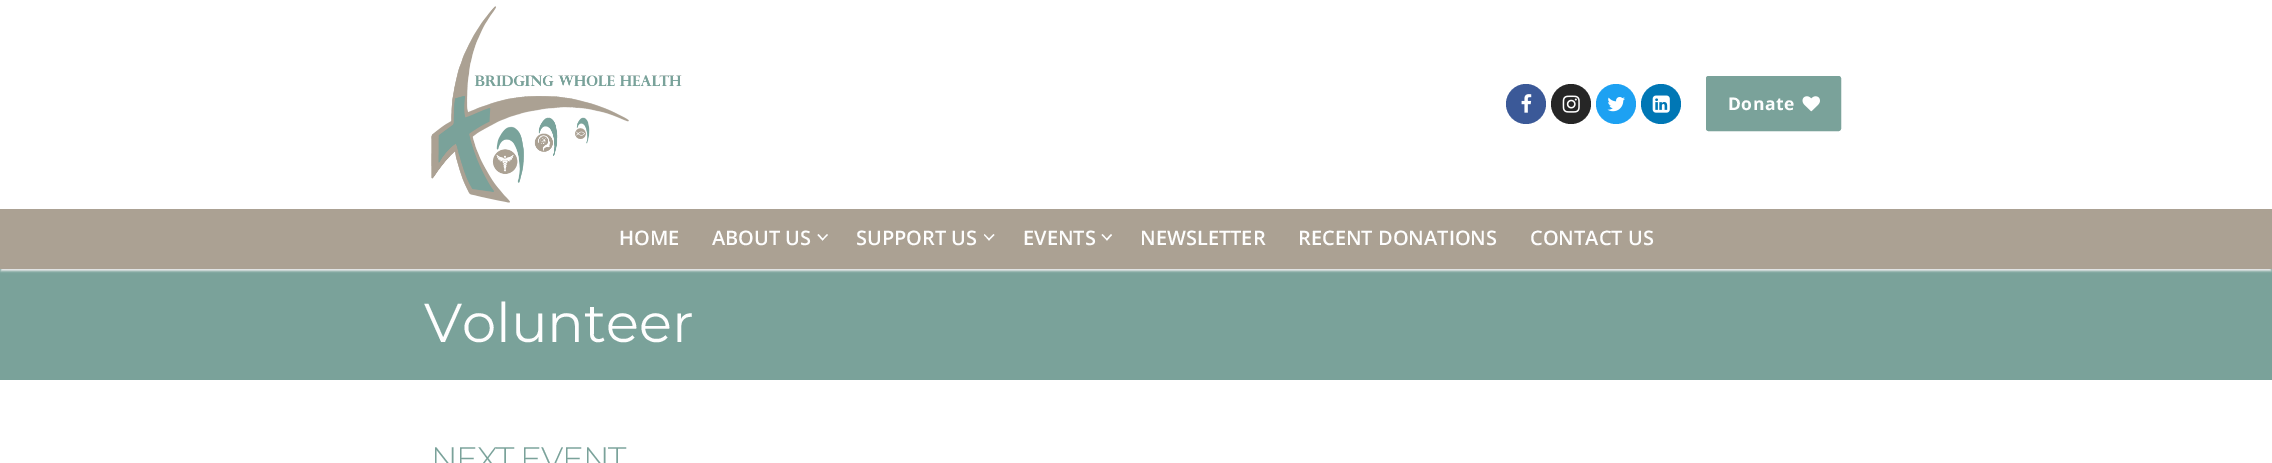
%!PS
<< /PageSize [2272 463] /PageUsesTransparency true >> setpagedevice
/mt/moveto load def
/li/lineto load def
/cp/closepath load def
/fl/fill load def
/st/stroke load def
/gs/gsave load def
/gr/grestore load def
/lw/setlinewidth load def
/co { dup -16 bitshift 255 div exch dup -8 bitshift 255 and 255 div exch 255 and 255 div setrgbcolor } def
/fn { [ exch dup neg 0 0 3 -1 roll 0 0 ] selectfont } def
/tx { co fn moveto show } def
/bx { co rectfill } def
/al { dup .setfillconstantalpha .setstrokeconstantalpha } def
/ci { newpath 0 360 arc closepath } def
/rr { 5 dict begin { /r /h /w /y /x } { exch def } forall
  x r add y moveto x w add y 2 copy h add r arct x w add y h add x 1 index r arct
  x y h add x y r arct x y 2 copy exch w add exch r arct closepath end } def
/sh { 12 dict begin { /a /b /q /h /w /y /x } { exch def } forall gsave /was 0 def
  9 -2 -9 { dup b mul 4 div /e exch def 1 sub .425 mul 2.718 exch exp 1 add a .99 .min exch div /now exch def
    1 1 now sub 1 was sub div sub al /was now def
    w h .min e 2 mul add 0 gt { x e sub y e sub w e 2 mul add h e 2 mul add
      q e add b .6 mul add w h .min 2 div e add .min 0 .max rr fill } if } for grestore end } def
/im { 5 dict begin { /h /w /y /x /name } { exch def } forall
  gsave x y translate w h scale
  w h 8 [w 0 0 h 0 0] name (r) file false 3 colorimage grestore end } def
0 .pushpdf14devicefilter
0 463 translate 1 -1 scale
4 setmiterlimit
0 0 2272 463 16#FFFFFF bx
(media/1.raw) 431 6 251 197 im
16#3B5998 co
1526 104 20 ci fl
(media/2.raw) 1521 94 11 19 im
16#262626 co
1571 104 20 ci fl
(media/3.raw) 1562 95 18 18 im
16#1DA1F2 co
1616 104 20 ci fl
(media/4.raw) 1607 97 18 15 im
16#0077B5 co
1661 104 20 ci fl
(media/5.raw) 1652 95 18 18 im
16#7AA29A co
1708 78 131 51 .5 rr gs fl gr
4 lw
st
(media/6.raw) 1802 96 18 16 im
0 269 2272 111 16#7AA29A bx
16#EAEAEA co
1 214 2270 57 0 1 1 sh
0 209 2272 60 16#ABA193 bx
16#FFFFFF co
822.5 240.5 mt 817.5 235 li 818.5 234 li 823.5 239.5 li cp fl
822.5 240.5 mt 822 239.5 li 827 234 li 828 235 li cp fl
989 240.5 mt 984 235 li 984.5 234 li 990 239.5 li cp fl
989 240.5 mt 988 239.5 li 993.5 234 li 994.5 235 li cp fl
1107 240.5 mt 1101.5 235 li 1102.5 234 li 1107.5 239.5 li cp fl
1107 240.5 mt 1106 239.5 li 1111 234 li 1112 235 li cp fl
/OpenSans-Bold 17.5 fn
16#FEFEFE co
1728 110 mt .5 0 (Donate) ashow
(HOME) 619 245 /OpenSans-SemiBold 20 16#FEFEFE tx
(ABOUT US) 712 245 /OpenSans-SemiBold 20 16#FEFEFE tx
(SUPPORT US) 856 245 /OpenSans-SemiBold 20 16#FEFEFE tx
(EVENTS) 1023 245 /OpenSans-SemiBold 20 16#FEFEFE tx
(NEWSLETTER) 1140 245 /OpenSans-SemiBold 20 16#FEFEFE tx
(RECENT DONATIONS) 1298 245 /OpenSans-SemiBold 20 16#FEFEFE tx
(CONTACT US) 1530 245 /OpenSans-SemiBold 20 16#FEFEFE tx
(Volunteer) 424 342 /Montserrat-Regular 54.5 16#FEFEFE tx
/Montserrat-Light 32.5 fn
16#7AA29A co
431 470 mt -1.25 0 (NEXT EVENT) ashow
.poppdf14devicefilter showpage
